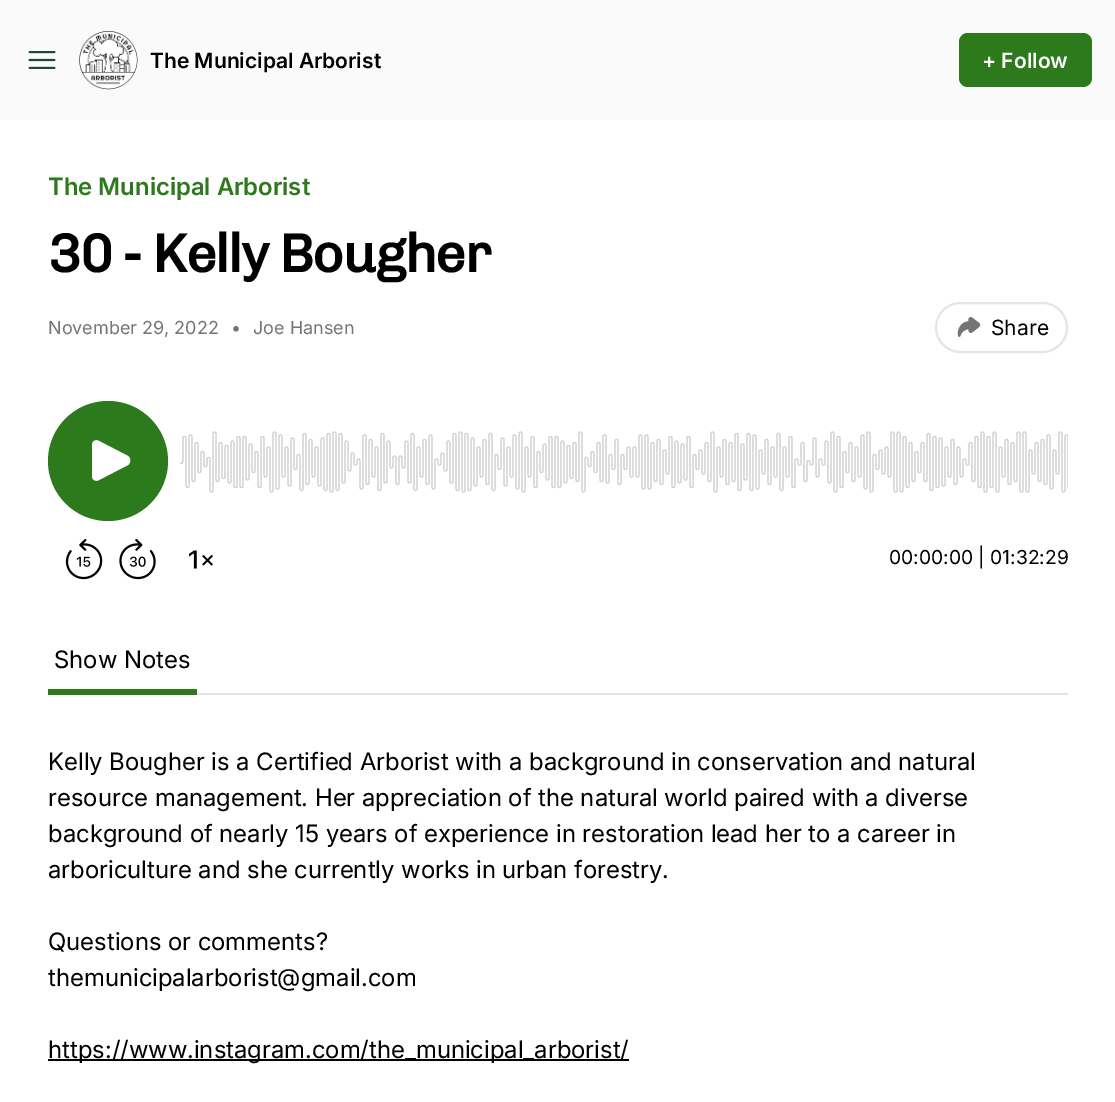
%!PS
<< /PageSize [1115 1102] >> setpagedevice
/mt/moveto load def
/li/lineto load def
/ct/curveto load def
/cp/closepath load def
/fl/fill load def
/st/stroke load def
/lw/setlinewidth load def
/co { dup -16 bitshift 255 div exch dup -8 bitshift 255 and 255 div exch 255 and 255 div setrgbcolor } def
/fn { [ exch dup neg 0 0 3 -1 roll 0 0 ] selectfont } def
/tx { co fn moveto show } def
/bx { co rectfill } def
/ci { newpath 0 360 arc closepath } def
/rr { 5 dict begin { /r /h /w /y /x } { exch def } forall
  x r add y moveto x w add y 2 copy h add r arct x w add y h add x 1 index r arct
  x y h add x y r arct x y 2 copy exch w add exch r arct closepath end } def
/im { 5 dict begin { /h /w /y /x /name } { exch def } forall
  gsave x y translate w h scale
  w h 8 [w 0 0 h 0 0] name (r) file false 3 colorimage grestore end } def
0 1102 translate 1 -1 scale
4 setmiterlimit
0 0 1115 1102 16#FFFFFF bx
0 0 1115 120 16#FAFAFA bx
(media/1.raw) 28 51 28 18 im
(media/2.raw) 79 31 59 59 im
16#2C7A1C co
959 33 133 54 9 rr fl
16#E4E5E6 co
2 lw
936 303 131 49 24.5 rr st
(media/3.raw) 957 317 24 20 im
(media/4.raw) 65 539 38 41 im
(media/5.raw) 119 539 37 41 im
(media/6.raw) 189 550 24 19 im
16#2C7A1C co
108 461 60 ci fl
16#FFFFFF co
92 445 mt 92 441 96 439 99 441 ct 128 456 li 131 458 131 463 128 465 ct 99 480 li 96 482 92 480 92 476 ct cp eofill
(media/7.raw) 180 431 888 62 im
197 693 871 2 16#E4E5E6 bx
48 689 149 6 16#2C7A1C bx
48 1059 581 2 16#000000 bx
(The Municipal Arborist) 150 68 /Inter-SemiBold 21 16#000000 tx
(+ Follow) 982 68 /Inter-SemiBold 21 16#FFFFFF tx
(The Municipal Arborist) 48 195 /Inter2-SemiBold 24 16#2C7A1C tx
/Chivo-Bold 54 fn
16#000000 co
48 272 mt -1.4 0 (30 - Kelly Bougher) ashow
(November 29, 2022) 48 334 /Inter-Regular 18 16#747576 tx
(•) 231 334 /Inter-Regular 18 16#747576 tx
(Joe Hansen) 253 334 /Inter-Regular 18 16#747576 tx
(Share) 991 335 /Inter-Regular 21 16#000000 tx
(00:00:00 | 01:32:29) 889 564 /Inter-Regular 19.25 16#000000 tx
(Show Notes) 54 668 /Inter2-Regular 24 16#000000 tx
(Kelly Bougher is a Certified Arborist with a background in conservation and natural) 48 770 /Inter2-Regular 24 16#000000 tx
(resource management. Her appreciation of the natural world paired with a diverse) 48 806 /Inter2-Regular 24 16#000000 tx
(background of nearly 15 years of experience in restoration lead her to a career in) 48 842 /Inter2-Regular 24 16#000000 tx
(arboriculture and she currently works in urban forestry.) 48 878 /Inter2-Regular 24 16#000000 tx
(Questions or comments?) 48 950 /Inter2-Regular 24 16#000000 tx
(themunicipalarborist@gmail.com) 48 986 /Inter2-Regular 24 16#000000 tx
(https://www.instagram.com/the_municipal_arborist/) 48 1058 /Inter2-Regular 24 16#000000 tx
showpage
